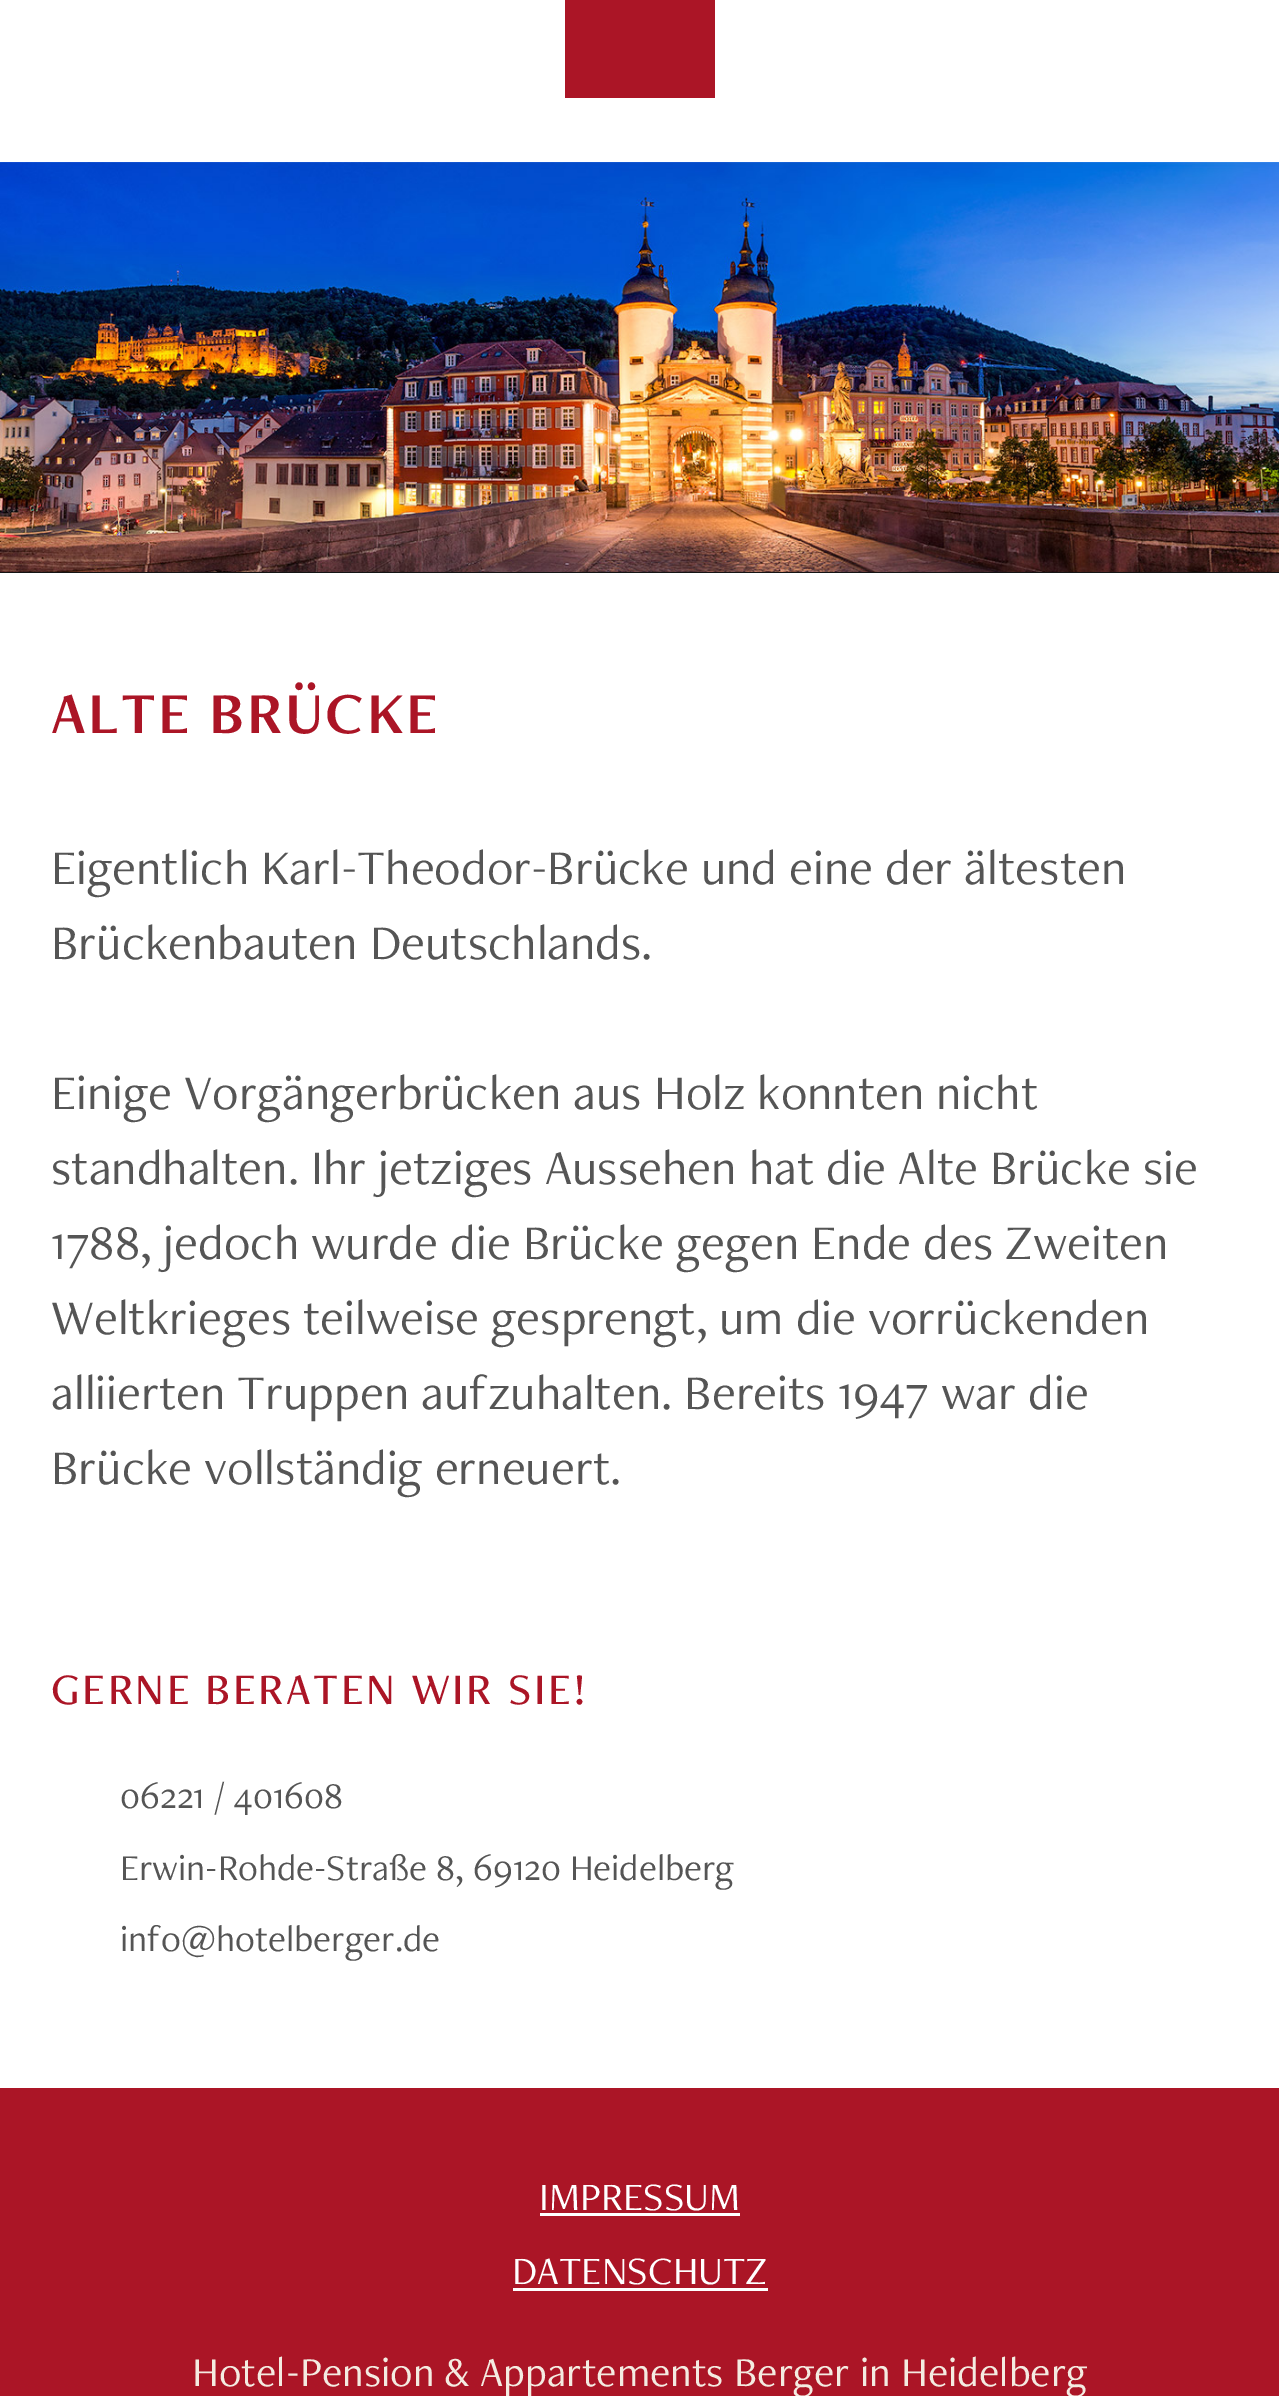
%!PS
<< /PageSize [1279 2396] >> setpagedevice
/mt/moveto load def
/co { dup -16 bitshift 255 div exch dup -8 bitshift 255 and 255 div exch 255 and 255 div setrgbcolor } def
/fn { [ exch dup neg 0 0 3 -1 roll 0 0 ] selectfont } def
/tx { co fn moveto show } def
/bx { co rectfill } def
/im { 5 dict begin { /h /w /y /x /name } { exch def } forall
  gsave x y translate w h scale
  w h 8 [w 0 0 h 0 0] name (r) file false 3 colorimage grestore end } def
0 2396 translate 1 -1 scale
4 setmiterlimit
0 0 1279 2396 16#FFFFFF bx
565 0 150 98 16#AB1526 bx
0 572 1279 1 16#141414 bx
(media/1.raw) 0 162 1279 410 im
0 2088 1279 308 16#AB1526 bx
540 2213 200 3 16#FFFFFF bx
513 2288 255 3 16#FFFFFF bx
/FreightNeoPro-Regular 60 fn
16#AB1526 co
51 733 mt 2.5 0 (ALTE BRÜCKE) ashow
(Eigentlich Karl-Theodor-Brücke und eine der ältesten) 51 884 /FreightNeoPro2-Regular 50 16#555555 tx
(Brückenbauten Deutschlands.) 51 959 /FreightNeoPro2-Regular 50 16#555555 tx
(Einige Vorgängerbrücken aus Holz konnten nicht) 51 1109 /FreightNeoPro2-Regular 50 16#555555 tx
(standhalten. Ihr jetziges Aussehen hat die Alte Brücke sie) 51 1184 /FreightNeoPro2-Regular 50 16#555555 tx
(1788, jedoch wurde die Brücke gegen Ende des Zweiten) 51 1259 /FreightNeoPro2-Regular 50 16#555555 tx
(Weltkrieges teilweise gesprengt, um die vorrückenden) 51 1334 /FreightNeoPro2-Regular 50 16#555555 tx
(alliierten Truppen aufzuhalten. Bereits 1947 war die) 51 1409 /FreightNeoPro2-Regular 50 16#555555 tx
(Brücke vollständig erneuert.) 51 1484 /FreightNeoPro2-Regular 50 16#555555 tx
/FreightNeoPro-Medium 45 fn
16#AB1526 co
51 1704 mt 2.5 0 (GERNE BERATEN WIR SIE!) ashow
(06221 / 401608) 120 1808 /FreightNeoPro2-Regular 37.5 16#555555 tx
(Erwin-Rohde-Straße 8, 69120 Heidelberg) 120 1880 /FreightNeoPro2-Regular 37.5 16#555555 tx
(info@hotelberger.de) 120 1951 /FreightNeoPro2-Regular 37.5 16#555555 tx
(IMPRESSUM) 539 2210 /FreightNeoPro2-Regular 40 16#FFFFFF tx
(DATENSCHUTZ) 512 2284 /FreightNeoPro2-Regular 40 16#FFFFFF tx
(Hotel-Pension & Appartements Berger in Heidelberg) 192 2386 /FreightNeoPro2-Regular 42.5 16#F4EBE1 tx
showpage
